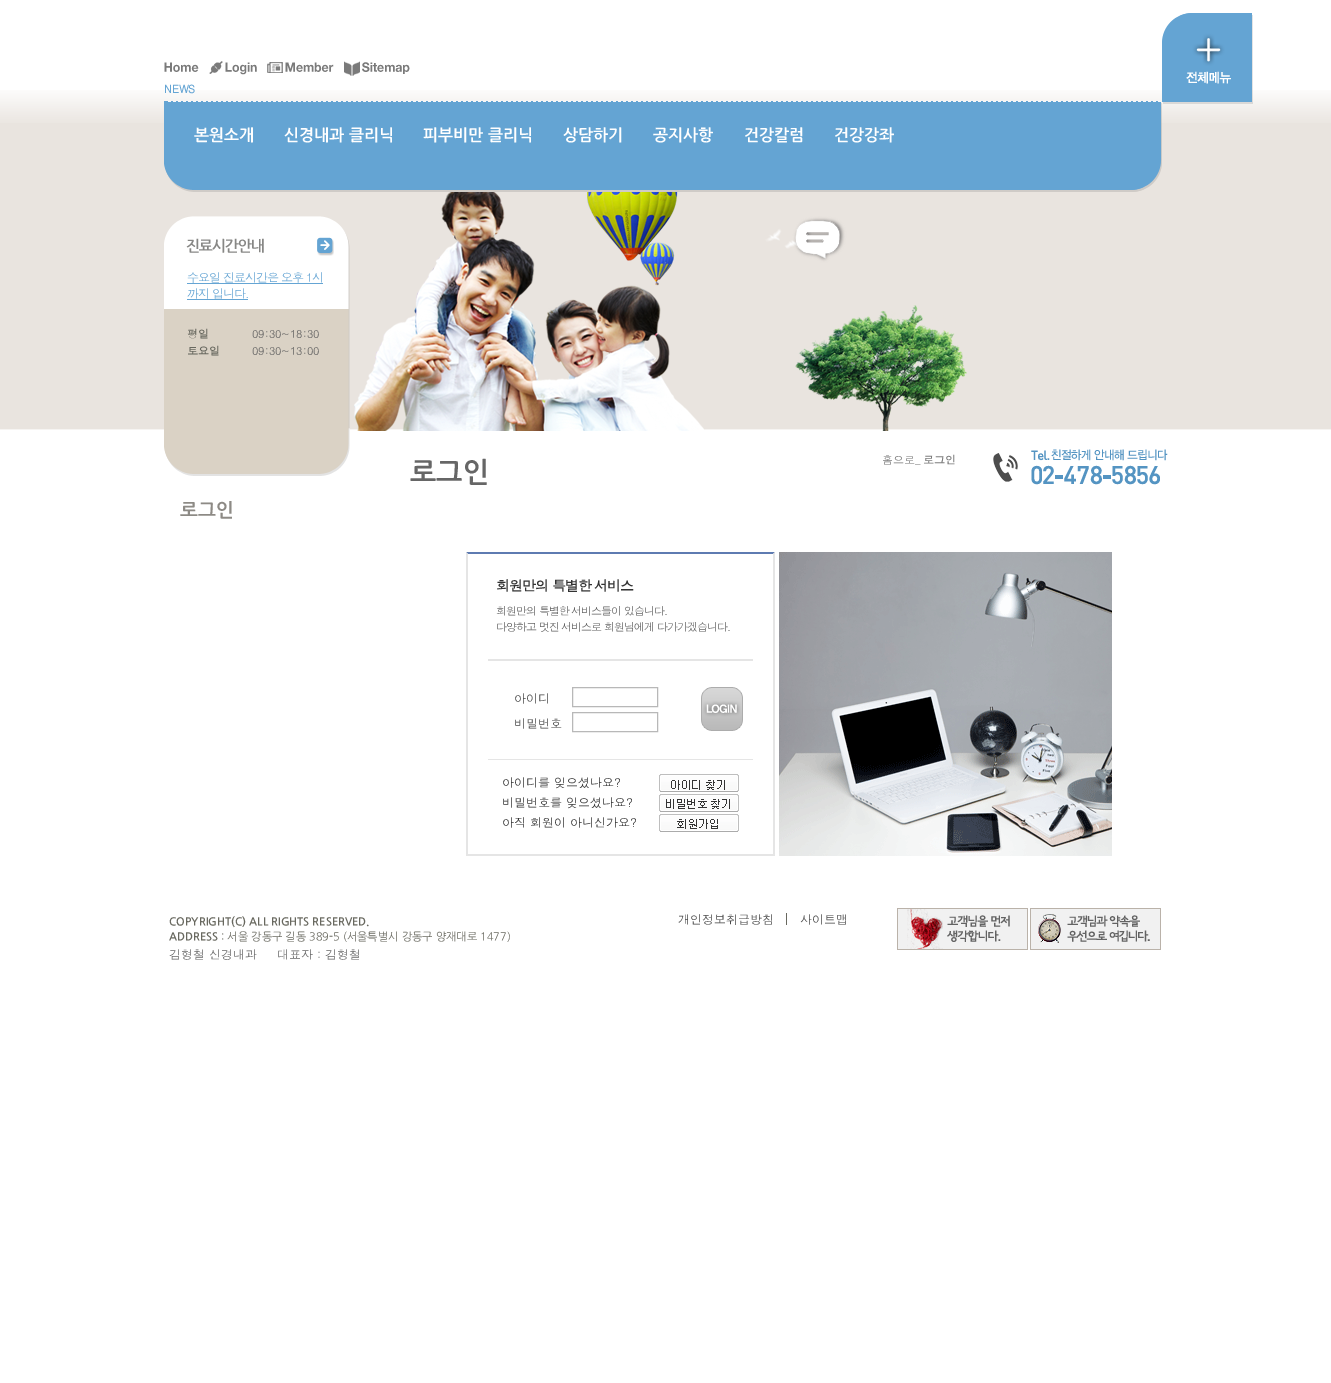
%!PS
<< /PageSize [1331 1383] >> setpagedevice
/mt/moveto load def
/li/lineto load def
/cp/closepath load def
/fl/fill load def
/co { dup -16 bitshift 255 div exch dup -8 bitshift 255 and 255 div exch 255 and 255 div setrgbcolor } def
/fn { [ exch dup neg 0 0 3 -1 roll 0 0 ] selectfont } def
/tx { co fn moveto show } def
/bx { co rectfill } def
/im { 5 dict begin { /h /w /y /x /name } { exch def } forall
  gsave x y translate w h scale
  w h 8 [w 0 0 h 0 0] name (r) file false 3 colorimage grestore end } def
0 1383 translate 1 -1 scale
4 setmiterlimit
0 0 1331 1383 16#FFFFFF bx
(media/1.raw) 0 90 1331 340 im
(media/2.raw) 164 62 35 10 im
(media/3.raw) 209 61 48 14 im
(media/4.raw) 267 62 67 11 im
(media/5.raw) 344 61 66 15 im
(media/6.raw) 1162 13 91 91 im
(media/7.raw) 164 101 998 91 im
(media/8.raw) 164 216 186 260 im
(media/9.raw) 317 237 17 19 im
(media/10.raw) 186 238 78 15 im
187 283 136 1 16#65A5D4 bx
187 299 61 1 16#65A5D4 bx
(media/12.raw) 587 192 380 239 im
(media/11.raw) 354 192 350 239 im
(media/13.raw) 993 453 25 29 im
(media/14.raw) 1031 449 137 12 im
(media/15.raw) 1031 465 11 20 im
(media/16.raw) 1043 465 11 19 im
1055 475 8 4 16#5494C2 bx
(media/17.raw) 1064 466 12 18 im
(media/18.raw) 1077 466 12 18 im
(media/19.raw) 1090 465 12 20 im
1103 475 8 4 16#5494C2 bx
(media/20.raw) 1112 466 11 19 im
(media/19.raw) 1124 465 12 20 im
(media/20.raw) 1137 466 11 19 im
(media/21.raw) 1149 466 11 19 im
16#5E7BB1 co
466 552 mt 775 552 li 773 554 li 468 554 li cp fl
16#E5E5E5 co
775 552 mt 775 856 li 773 854 li 773 554 li cp fl
466 854 309 2 16#E5E5E5 bx
466 856 mt 466 552 li 468 554 li 468 854 li cp fl
488 659 265 2 16#E5E5E5 bx
488 759 265 1 16#E5E5E5 bx
16#B8B8B8 co
572.5 687.5 85 19 rectstroke
(media/22.raw) 701 687 42 44 im
572.5 712.5 85 19 rectstroke
(media/23.raw) 659 774 80 18 im
(media/24.raw) 659 794 80 18 im
(media/25.raw) 659 814 80 18 im
(media/26.raw) 779 552 333 304 im
786 913 1 12 16#68685F bx
(media/27.raw) 897 908 131 42 im
(media/28.raw) 1030 908 131 42 im
(NEWS) 164 93 /Dotum-Bold 11 16#65A5D4 tx
(본원소개) 194 140 /NanumGothic-Bold 16 16#FFFFFF tx
(신경내과 클리닉) 284 140 /NanumGothic-Bold 16 16#FFFFFF tx
(피부비만 클리닉) 423 140 /NanumGothic-Bold 16 16#FFFFFF tx
(상담하기) 563 140 /NanumGothic-Bold 16 16#FFFFFF tx
(공지사항) 653 140 /NanumGothic-Bold 16 16#FFFFFF tx
(건강칼럼) 744 140 /NanumGothic-Bold 16 16#FFFFFF tx
(건강강좌) 834 140 /NanumGothic-Bold 16 16#FFFFFF tx
/Dotum-Regular 12 fn
16#65A5D4 co
187 282 mt -1 0 (수요일 진료시간은 오후 1시) ashow
187 298 mt -1 0 (까지 입니다.) ashow
(평일) 187 338 /Dotum-Bold 11 16#68685F tx
(09:30~18:30) 252 338 /Dotum-Regular 11 16#606060 tx
(토요일) 187 355 /Dotum-Bold 11 16#68685F tx
(09:30~13:00) 252 355 /Dotum-Regular 11 16#606060 tx
(로그인) 180 516 /NanumGothic-Bold 19 16#8D8A85 tx
(로그인) 410 481 /NanumGothic-Bold 28 16#666666 tx
(홈으로_) 882 464 /Dotum-Regular 11 16#7B7B7B tx
(로그인) 923 464 /Dotum-Bold 11 16#7B7B7B tx
/Dotum-Bold 14 fn
16#333333 co
496 591 mt -1 0 (회원만의 특별한 서비스) ashow
/Dotum-Regular 11 fn
16#666666 co
496 615 mt -1 0 (회원만의 특별한 서비스들이 있습니다.) ashow
496 631 mt -1 0 (다양하고 멋진 서비스로 회원님에게 다가가겠습니다.) ashow
(아이디) 514 703 /Dotum-Regular 12 16#484848 tx
(비밀번호) 514 728 /Dotum-Regular 12 16#484848 tx
(아이디를 잊으셨나요?) 502 787 /Dotum-Regular 12 16#333333 tx
(비밀번호를 잊으셨나요?) 502 807 /Dotum-Regular 12 16#333333 tx
(아직 회원이 아니신가요?) 502 827 /Dotum-Regular 12 16#333333 tx
(COPYRIGHT\(C\) ALL RIGHTS RESERVED.) 169 925 /NanumGothic-Bold 11 16#68685F tx
(개인정보취급방침) 678 924 /Dotum-Regular 12 16#484848 tx
(사이트맵) 800 924 /Dotum-Regular 12 16#484848 tx
(ADDRESS) 169 940 /NanumGothic-Bold 11 16#68685F tx
(: 서울 강동구 길동 389-5 \(서울특별시 강동구 양재대로 1477\)) 221 940 /NanumGothic-Regular 11 16#68685F tx
(김형철 신경내과) 169 959 /Dotum-Regular 12 16#666666 tx
(대표자 : 김형철) 277 959 /Dotum-Regular 12 16#666666 tx
showpage
